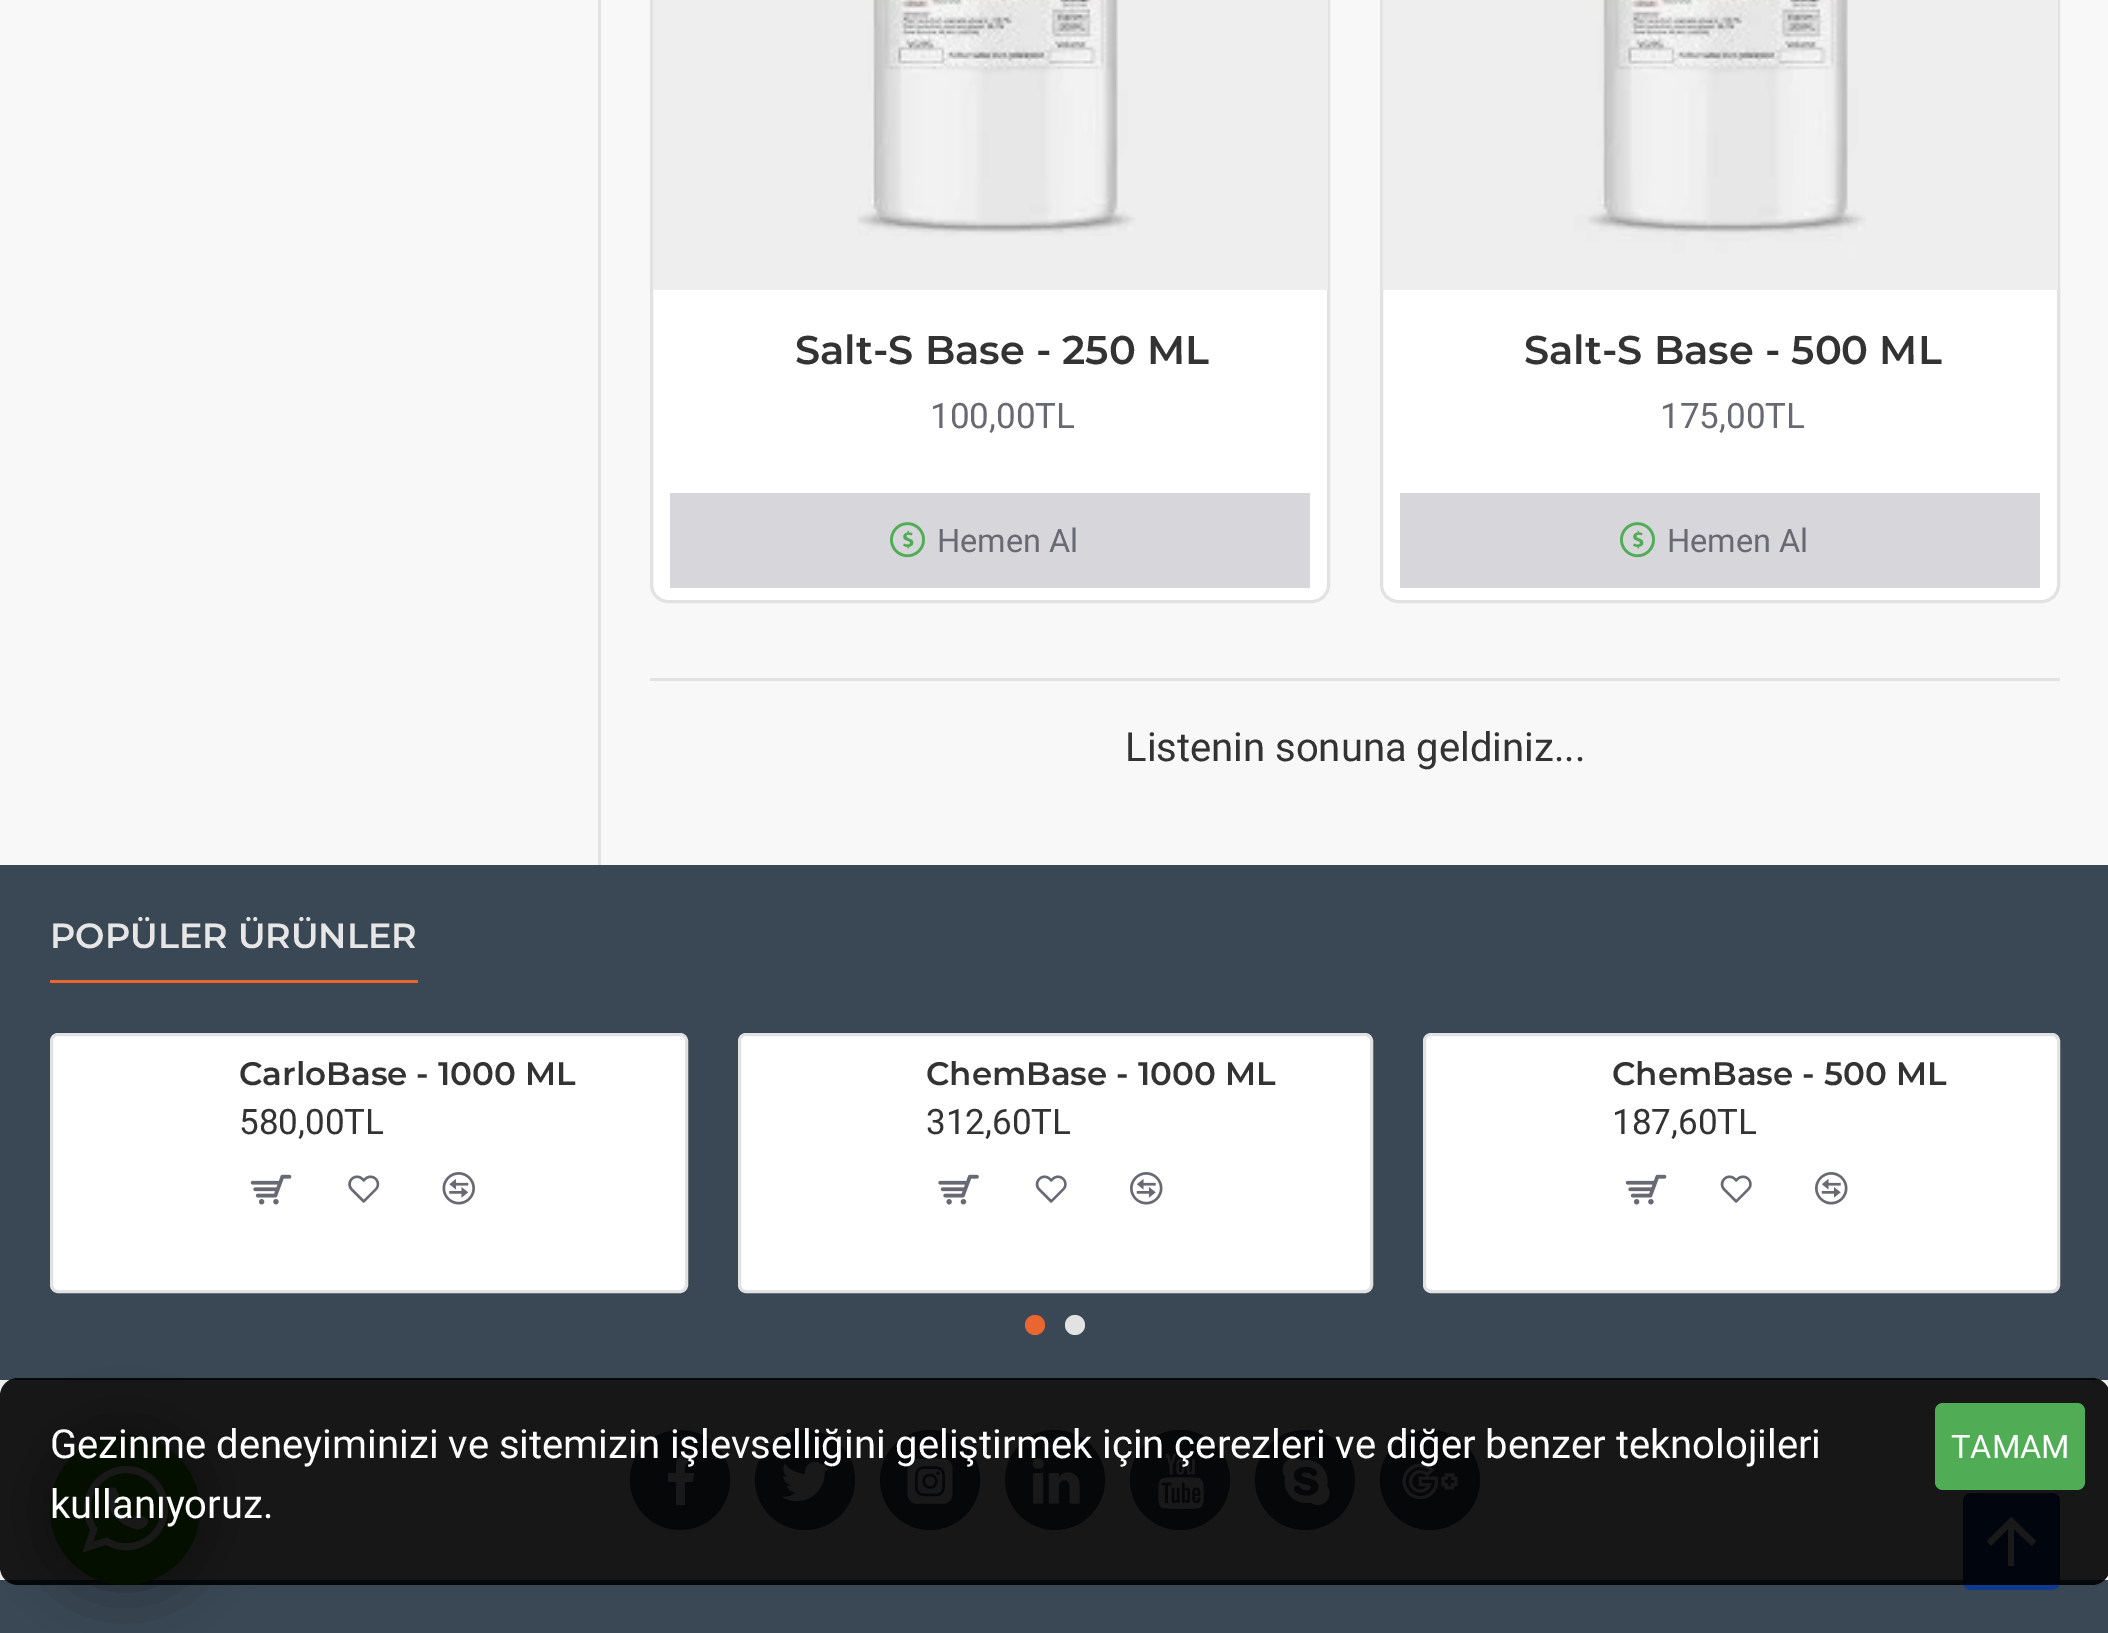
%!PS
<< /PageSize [2108 1633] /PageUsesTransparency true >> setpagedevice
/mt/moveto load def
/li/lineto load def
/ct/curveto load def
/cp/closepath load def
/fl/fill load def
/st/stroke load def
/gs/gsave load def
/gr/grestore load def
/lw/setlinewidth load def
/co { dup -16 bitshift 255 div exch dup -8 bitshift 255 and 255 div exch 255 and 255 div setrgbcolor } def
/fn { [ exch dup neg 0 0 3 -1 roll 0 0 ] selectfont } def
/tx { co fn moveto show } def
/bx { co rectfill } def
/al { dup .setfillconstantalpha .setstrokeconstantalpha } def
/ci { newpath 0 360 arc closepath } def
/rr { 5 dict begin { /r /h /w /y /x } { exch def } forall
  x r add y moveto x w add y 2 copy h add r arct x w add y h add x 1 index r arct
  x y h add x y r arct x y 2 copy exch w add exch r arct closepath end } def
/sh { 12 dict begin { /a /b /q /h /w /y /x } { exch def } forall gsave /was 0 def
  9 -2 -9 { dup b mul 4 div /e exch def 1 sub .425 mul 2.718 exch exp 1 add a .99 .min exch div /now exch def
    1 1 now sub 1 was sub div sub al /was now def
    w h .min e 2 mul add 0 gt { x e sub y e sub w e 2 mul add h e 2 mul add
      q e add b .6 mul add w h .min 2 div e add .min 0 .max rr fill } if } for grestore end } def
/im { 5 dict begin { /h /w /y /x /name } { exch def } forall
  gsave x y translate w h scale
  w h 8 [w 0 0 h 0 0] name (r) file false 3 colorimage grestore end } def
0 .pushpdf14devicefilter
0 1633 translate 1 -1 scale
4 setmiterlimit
0 0 2108 1633 16#F8F8F8 bx
598 0 3 865 16#E2E2E2 bx
16#FFFFFF co
651.5 -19.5 677 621 16.5 rr gs fl gr
16#E2E2E2 co
3 lw
st
653 0 675 290 16#EEEEEE bx
(media/1.raw) 857 0 279 236 im
670 493 640 95 16#D6D6DB bx
(media/2.raw) 890 522 35 36 im
16#FFFFFF co
1381.5 -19.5 677 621 16.5 rr gs fl gr
16#E2E2E2 co
st
1383 0 675 290 16#EEEEEE bx
(media/3.raw) 1382 0 484 290 im
1400 493 640 95 16#D6D6DB bx
(media/2.raw) 1620 522 35 36 im
650 678 1410 3 16#E2E2E2 bx
0 865 2108 515 16#3A4754 bx
50 980 368 3 16#E96631 bx
16#FFFFFF co
51.5 1034.5 635 257 6.5 rr gs fl gr
16#E2E2E2 co
st
(media/4.raw) 250 1174 42 31 im
(media/5.raw) 348 1175 32 28 im
(media/6.raw) 442 1172 33 33 im
16#FFFFFF co
739.5 1034.5 632 257 6.5 rr gs fl gr
16#E2E2E2 co
st
(media/7.raw) 938 1174 41 31 im
(media/8.raw) 1035 1175 32 28 im
(media/9.raw) 1130 1172 33 33 im
16#FFFFFF co
1424.5 1034.5 634 257 6.5 rr gs fl gr
16#E2E2E2 co
st
(media/4.raw) 1625 1174 42 31 im
(media/8.raw) 1720 1175 32 28 im
(media/9.raw) 1815 1172 33 33 im
16#E96631 co
1035 1325 10 ci fl
16#E2E2E2 co
1075 1325 10 ci fl
0 1380 2108 200 16#EEEEEE bx
16#3A4754 co
680 1480 50 ci fl
16#FFFFFF co
694 1454 mt 694 1462 li 684 1462 685 1463 685 1473 ct 694 1473 li 693 1482 li 685 1482 li 685 1505 li 676 1505 li 676 1482 li 668 1482 li 668 1473 li 676 1473 li 676 1463 li 678 1454 687 1453 694 1454 ct cp fl
16#3A4754 co
805 1480 50 ci fl
(media/10.raw) 781 1461 49 41 im
930 1480 50 ci fl
(media/11.raw) 907 1458 46 46 im
1055 1480 50 ci fl
(media/12.raw) 1032 1458 48 46 im
1180 1480 50 ci fl
(media/13.raw) 1158 1453 46 56 im
1305 1480 50 ci fl
(media/14.raw) 1282 1457 48 48 im
1430 1480 50 ci fl
(media/15.raw) 1402 1463 56 37 im
0 1580 2108 53 16#3A4754 bx
16#000000 co
50 1435 150 150 75 31 .4 sh
16#329C05 co
125 1510 75 ci fl
(media/16.raw) 82 1466 87 87 im
16#0F3A8D co
1963 1493 97 97 8 rr fl
16#FFFFFF co
1987 1541 mt 2011 1517 li 2036 1541 li 2032 1546 li 2014 1529 li 2014 1566 li 2008 1566 li 2008 1529 li 1991 1546 li cp fl
0.9 al
16#000000 co
0 1378 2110 207 18 rr fl
1 al
16#50AD55 co
1935 1403 150 87 8 rr fl
(Salt-S Base - 250 ML) 795 364 /Montserrat-SemiBold 40 16#333333 tx
(100,00TL) 930 428 /Roboto-Regular 35 16#696973 tx
(Hemen Al) 937 552 /Roboto-Regular 32.5 16#696973 tx
(Salt-S Base - 500 ML) 1524 364 /Montserrat-SemiBold 40 16#333333 tx
(175,00TL) 1660 428 /Roboto-Regular 35 16#696973 tx
(Hemen Al) 1667 552 /Roboto-Regular 32.5 16#696973 tx
(Listenin sonuna geldiniz...) 1125 761 /Roboto-Regular 40 16#333333 tx
(POPÜLER ÜRÜNLER) 50 948 /Montserrat-SemiBold 35 16#E6E6E6 tx
(CarloBase - 1000 ML) 239 1085 /Montserrat-SemiBold 32.5 16#333333 tx
(580,00TL) 239 1134 /Roboto-Regular 35 16#333333 tx
(ChemBase - 1000 ML) 926 1085 /Montserrat-SemiBold 32.5 16#333333 tx
(312,60TL) 926 1134 /Roboto-Regular 35 16#333333 tx
(ChemBase - 500 ML) 1612 1085 /Montserrat-SemiBold 32.5 16#333333 tx
(187,60TL) 1612 1134 /Roboto-Regular 35 16#333333 tx
(Gezinme deneyiminizi ve sitemizin işlevselliğini geliştirmek için çerezleri ve diğer benzer teknolojileri) 50 1458 /Roboto-Regular 40 16#FFFFFF tx
(kullanıyoruz.) 50 1518 /Roboto-Regular 40 16#FFFFFF tx
(TAMAM) 1951 1458 /Roboto-Regular 32.5 16#FFFFFF tx
.poppdf14devicefilter showpage
